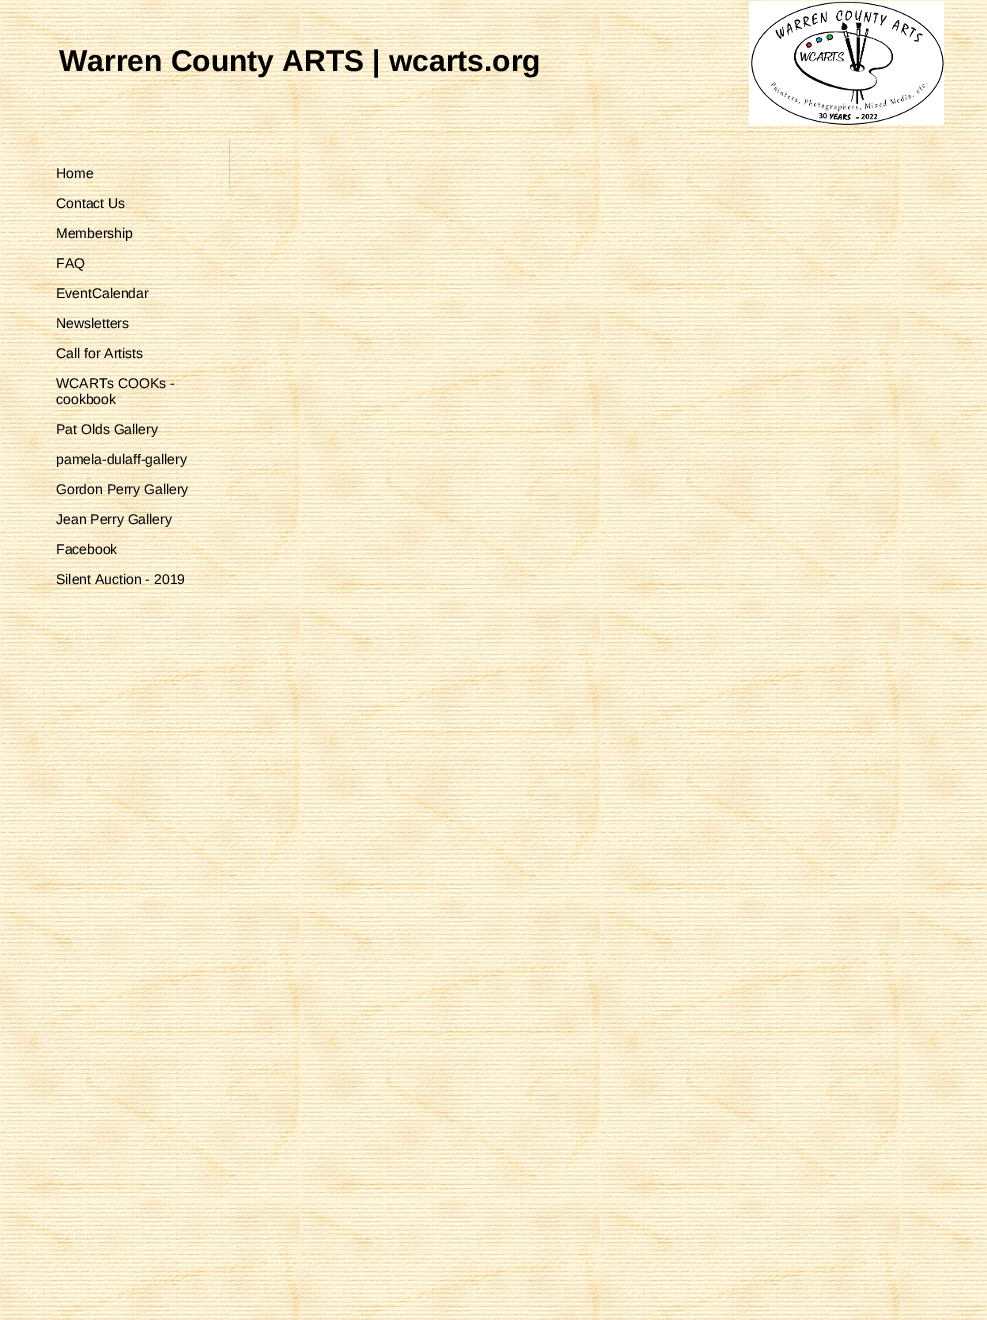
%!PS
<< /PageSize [987 1320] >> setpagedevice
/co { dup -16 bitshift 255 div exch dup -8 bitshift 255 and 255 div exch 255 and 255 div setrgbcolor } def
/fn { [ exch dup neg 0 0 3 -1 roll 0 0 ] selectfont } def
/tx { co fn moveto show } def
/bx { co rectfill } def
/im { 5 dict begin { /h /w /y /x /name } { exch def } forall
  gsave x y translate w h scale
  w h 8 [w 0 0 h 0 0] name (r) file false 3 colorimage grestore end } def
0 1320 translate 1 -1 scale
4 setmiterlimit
0 0 987 1320 16#FFFFFF bx
(media/1.raw) 0 0 987 1320 im
(media/2.raw) 749 1 195 124 im
229 139 1 49 16#CCCCCC bx
(Warren County ARTS | wcarts.org) 59 71 /LiberationSans-Bold 30 16#000000 tx
(Home) 56 178 /LiberationSans-Regular 14 16#000000 tx
(Contact Us) 56 208 /LiberationSans-Regular 14 16#000000 tx
(Membership) 56 238 /LiberationSans-Regular 14 16#000000 tx
(FAQ) 56 268 /LiberationSans-Regular 14 16#000000 tx
(EventCalendar) 56 298 /LiberationSans-Regular 14 16#000000 tx
(Newsletters) 56 328 /LiberationSans-Regular 14 16#000000 tx
(Call for Artists) 56 358 /LiberationSans-Regular 14 16#000000 tx
(WCARTs COOKs -) 56 388 /LiberationSans-Regular 14 16#000000 tx
(cookbook) 56 404 /LiberationSans-Regular 14 16#000000 tx
(Pat Olds Gallery) 56 434 /LiberationSans-Regular 14 16#000000 tx
(pamela-dulaff-gallery) 56 464 /LiberationSans-Regular 14 16#000000 tx
(Gordon Perry Gallery) 56 494 /LiberationSans-Regular 14 16#000000 tx
(Jean Perry Gallery) 56 524 /LiberationSans-Regular 14 16#000000 tx
(Facebook) 56 554 /LiberationSans-Regular 14 16#000000 tx
(Silent Auction - 2019) 56 584 /LiberationSans-Regular 14 16#000000 tx
showpage
